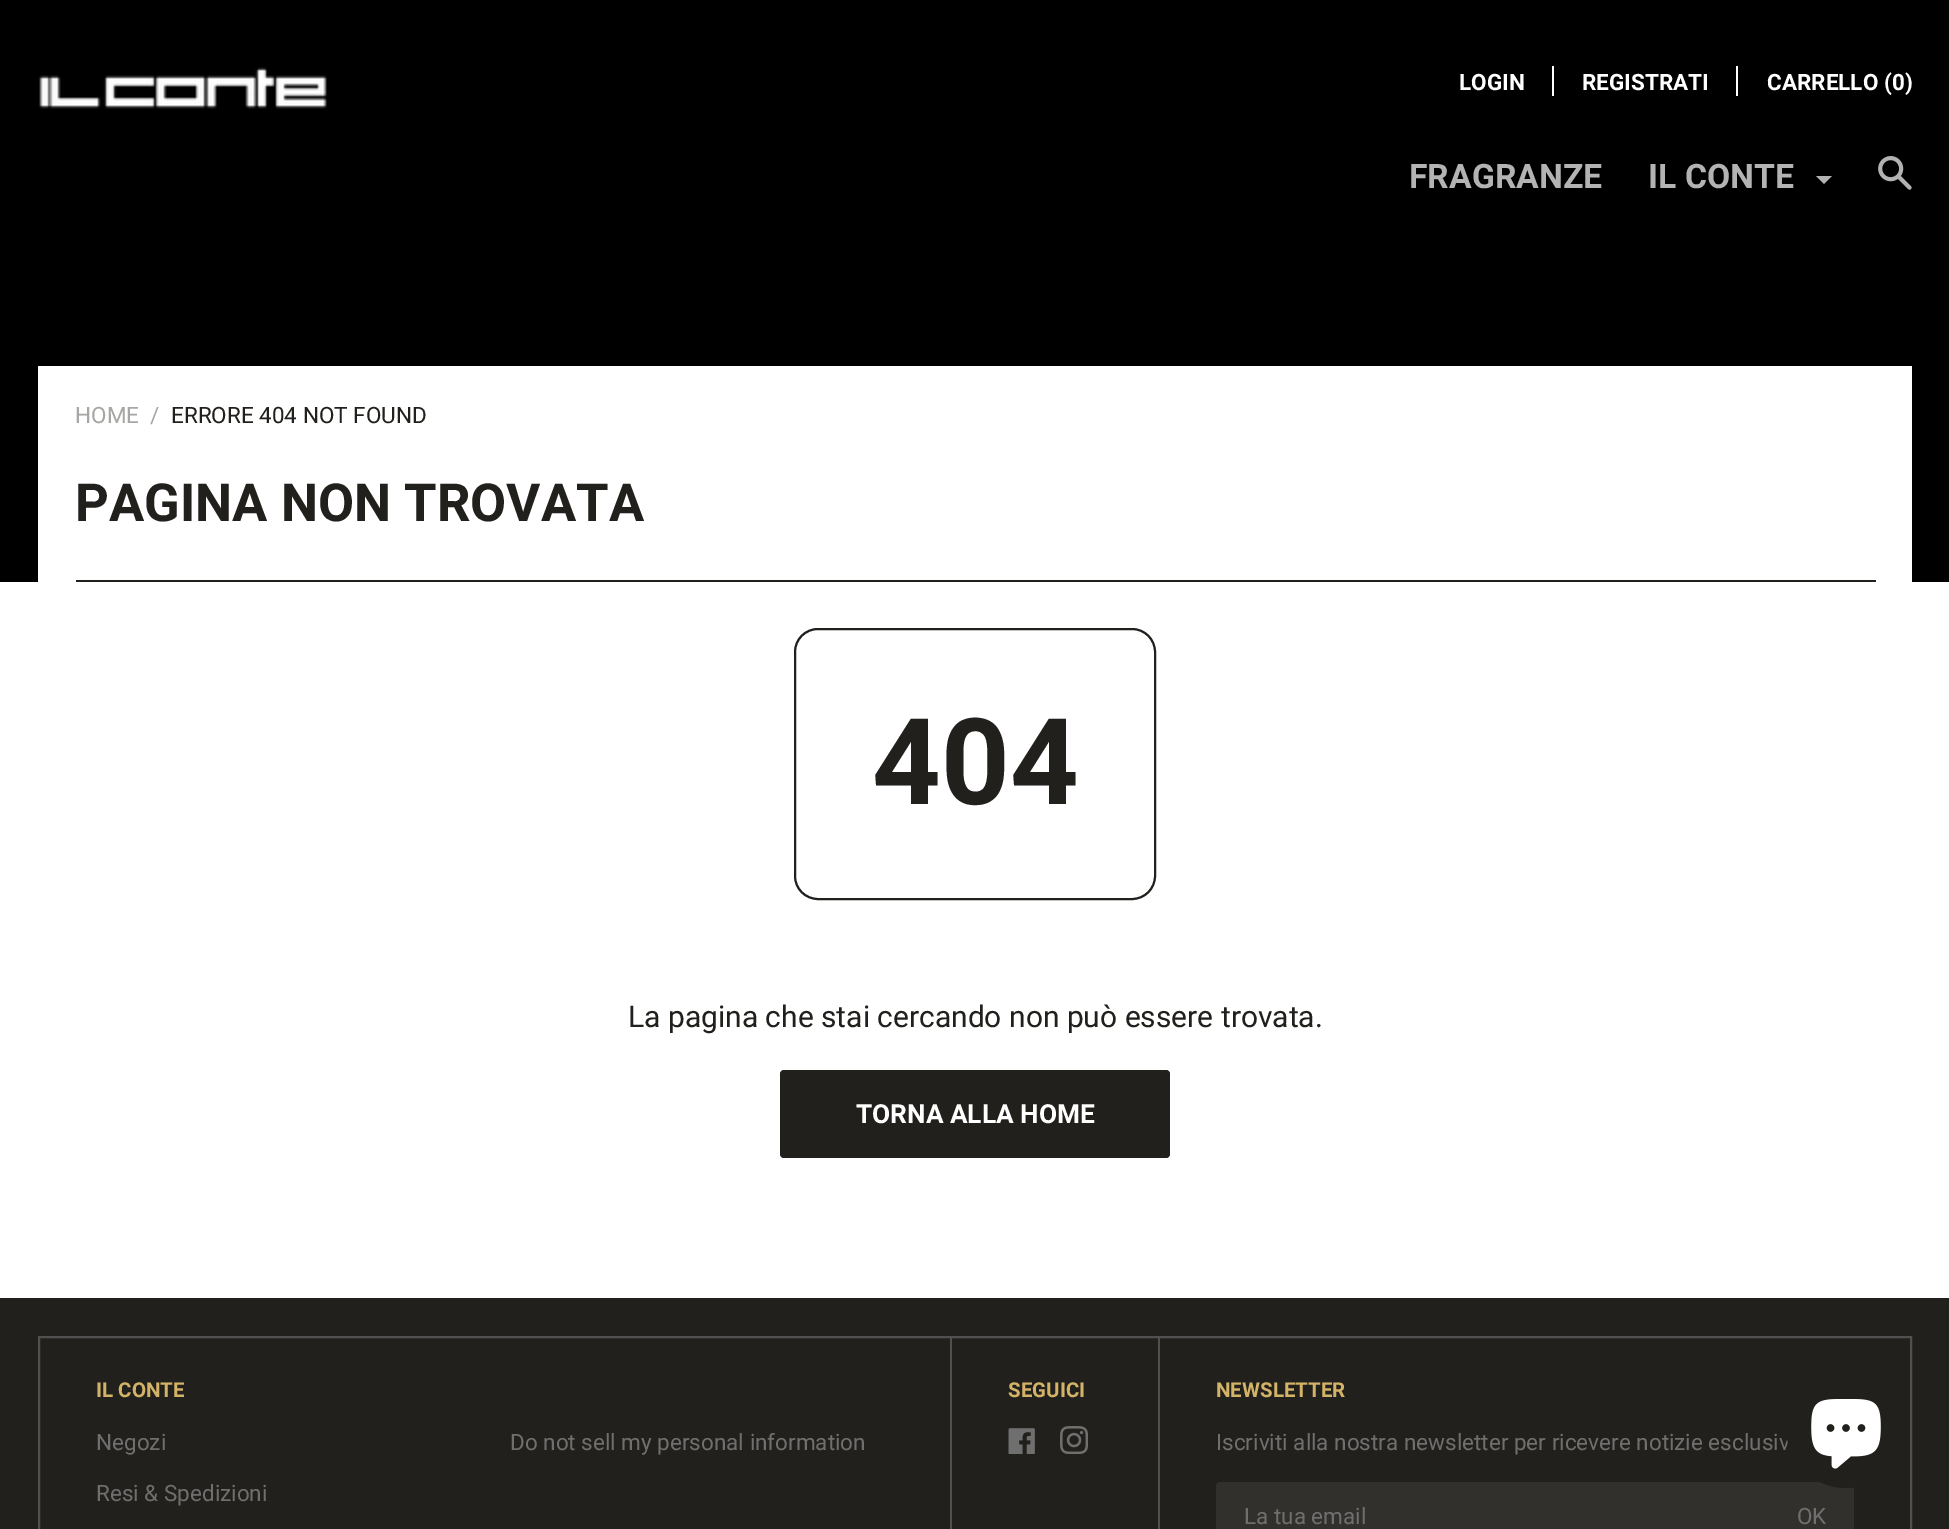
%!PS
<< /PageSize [1949 1529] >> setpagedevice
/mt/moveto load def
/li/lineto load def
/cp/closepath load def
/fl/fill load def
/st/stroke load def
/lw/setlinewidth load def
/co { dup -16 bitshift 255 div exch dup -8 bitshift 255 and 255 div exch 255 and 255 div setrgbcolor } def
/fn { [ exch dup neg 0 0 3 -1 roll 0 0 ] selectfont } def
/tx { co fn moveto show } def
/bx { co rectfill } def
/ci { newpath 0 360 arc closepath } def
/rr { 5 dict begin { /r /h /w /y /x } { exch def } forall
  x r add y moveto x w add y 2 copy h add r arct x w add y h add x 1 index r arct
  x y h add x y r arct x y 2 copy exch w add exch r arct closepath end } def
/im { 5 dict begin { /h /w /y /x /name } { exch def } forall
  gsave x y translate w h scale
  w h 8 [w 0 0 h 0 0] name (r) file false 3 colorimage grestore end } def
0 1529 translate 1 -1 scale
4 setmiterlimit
0 0 1949 1529 16#FFFFFF bx
0 0 1949 582 16#000000 bx
(media/1.raw) 39 67 288 42 im
1552 66 2 30 16#FFFFFF bx
1736 66 2 30 16#FFFFFF bx
16#B3B3B3 co
1816 176 mt 1832 176 li 1824 184 li cp fl
(media/2.raw) 1878 156 34 34 im
38 366 1874 216 16#FFFFFF bx
76 580 1800 2 16#22201C bx
2 lw
795 629 360 270 23 rr st
780 1070 390 88 4 rr fl
0 1298 1949 231 16#22201C bx
16#505050 co
39 1337 1872 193 rectstroke
950 1338 2 191 16#505050 bx
1158 1338 2 191 16#505050 bx
(media/3.raw) 1008 1428 27 26 im
(media/4.raw) 1060 1426 28 28 im
16#31302D co
1216 1482 638 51 4 rr fl
(LOGIN) 1459 90 /Roboto-Bold 22.5 16#FFFFFF tx
(REGISTRATI) 1582 90 /Roboto-Bold 22.5 16#FFFFFF tx
(CARRELLO \(0\)) 1767 90 /Roboto-Bold 22.5 16#FFFFFF tx
(FRAGRANZE) 1409 188 /Roboto-Bold 33.75 16#B3B3B3 tx
(IL CONTE) 1648 188 /Roboto-Bold 33.75 16#B3B3B3 tx
(HOME) 75 423 /Roboto-Regular 22.5 16#A7A6A4 tx
(/) 150 423 /Roboto-Regular 22.5 16#A7A6A4 tx
(ERRORE 404 NOT FOUND) 171 423 /Roboto-Regular 22.5 16#22201C tx
(PAGINA NON TROVATA) 75 521 /Roboto-Bold 52.5 16#22201C tx
(404) 872 804 /Roboto-Bold 120 16#22201C tx
(La pagina che stai cercando non può essere trovata.) 628 1027 /Roboto-Regular 30 16#22201C tx
(TORNA ALLA HOME) 856 1123 /Roboto-Bold 26.25 16#FFFFFF tx
(IL CONTE) 96 1397 /Roboto-Bold 20.5 16#D3B367 tx
(Negozi) 96 1450 /Roboto-Regular 22.5 16#6F6F6F tx
(Do not sell my personal information) 510 1450 /Roboto-Regular 22.5 16#6F6F6F tx
(Resi & Spedizioni) 96 1501 /Roboto-Regular 22.5 16#6F6F6F tx
(SEGUICI) 1008 1397 /Roboto-Bold 20.5 16#D3B367 tx
(NEWSLETTER) 1216 1397 /Roboto-Bold 20.5 16#D3B367 tx
(Iscriviti alla nostra newsletter per ricevere notizie esclusiv) 1216 1450 /Roboto-Regular 22.5 16#6F6F6F tx
(La tua email) 1244 1524 /Roboto-Regular 22.5 16#6F6F6F tx
(OK) 1797 1524 /Roboto-Regular 22.5 16#6F6F6F tx
16#22201C co
1846 1428 60 ci fl
(media/5.raw) 1811 1399 70 70 im
showpage
